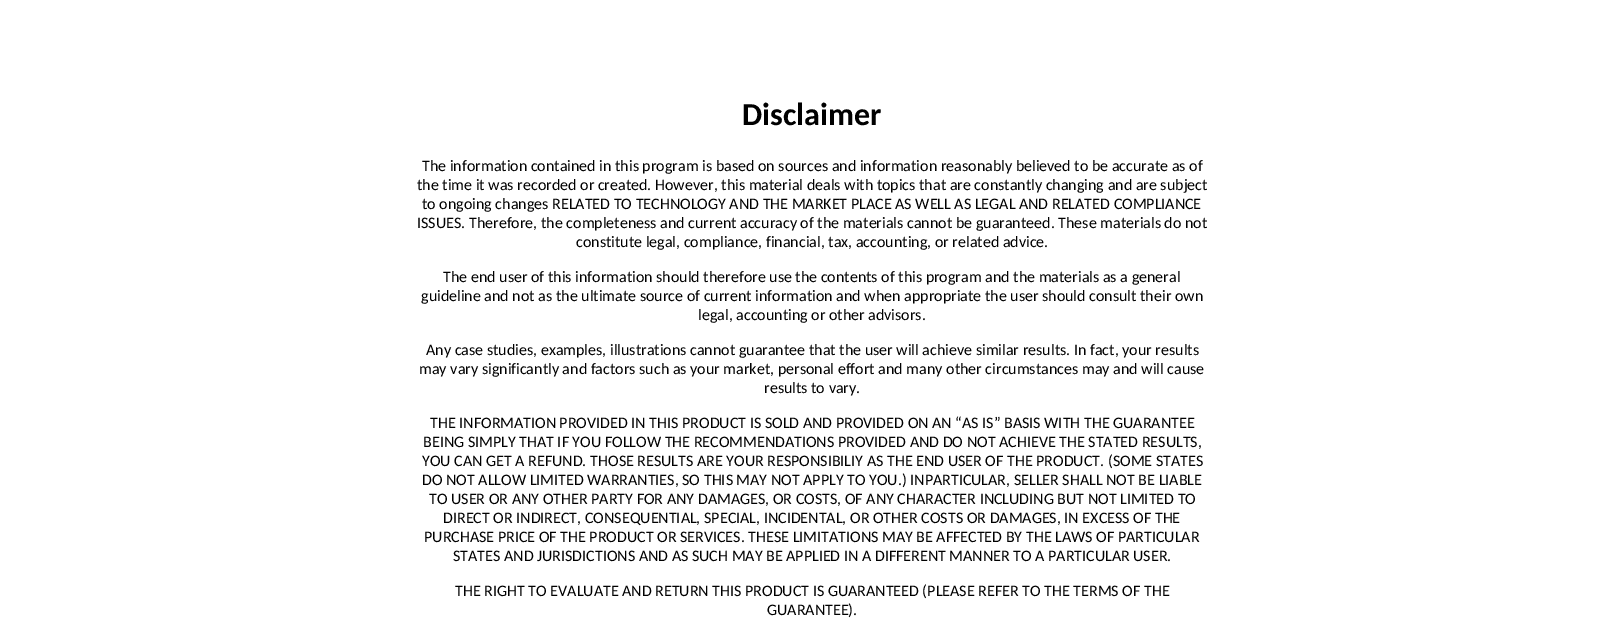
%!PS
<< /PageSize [1624 630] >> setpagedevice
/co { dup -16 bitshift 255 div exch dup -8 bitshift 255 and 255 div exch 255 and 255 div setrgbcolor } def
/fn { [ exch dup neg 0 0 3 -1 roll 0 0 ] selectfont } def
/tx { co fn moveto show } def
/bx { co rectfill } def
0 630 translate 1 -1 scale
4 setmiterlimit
0 0 1624 630 16#FFFFFF bx
(Disclaimer) 742 125 /Carlito-Bold 32 16#000000 tx
(The information contained in this program is based on sources and information reasonably believed to be accurate as of) 422 171 /Carlito-Regular 16 16#000000 tx
(the time it was recorded or created. However, this material deals with topics that are constantly changing and are subject) 417 190 /Carlito-Regular 16 16#000000 tx
(to ongoing changes RELATED TO TECHNOLOGY AND THE MARKET PLACE AS WELL AS LEGAL AND RELATED COMPLIANCE) 422 209 /Carlito-Regular 16 16#000000 tx
(ISSUES. Therefore, the completeness and current accuracy of the materials cannot be guaranteed. These materials do not) 417 228 /Carlito-Regular 16 16#000000 tx
(constitute legal, compliance, financial, tax, accounting, or related advice.) 576 247 /Carlito-Regular 16 16#000000 tx
(The end user of this information should therefore use the contents of this program and the materials as a general) 443 282 /Carlito-Regular 16 16#000000 tx
(guideline and not as the ultimate source of current information and when appropriate the user should consult their own) 421 301 /Carlito-Regular 16 16#000000 tx
(legal, accounting or other advisors.) 698 320 /Carlito-Regular 16 16#000000 tx
(Any case studies, examples, illustrations cannot guarantee that the user will achieve similar results. In fact, your results) 426 355 /Carlito-Regular 16 16#000000 tx
(may vary significantly and factors such as your market, personal effort and many other circumstances may and will cause) 419 374 /Carlito-Regular 16 16#000000 tx
(results to vary.) 764 393 /Carlito-Regular 16 16#000000 tx
(THE INFORMATION PROVIDED IN THIS PRODUCT IS SOLD AND PROVIDED ON AN “AS IS” BASIS WITH THE GUARANTEE) 430 428 /Carlito-Regular 16 16#000000 tx
(BEING SIMPLY THAT IF YOU FOLLOW THE RECOMMENDATIONS PROVIDED AND DO NOT ACHIEVE THE STATED RESULTS,) 423 447 /Carlito-Regular 16 16#000000 tx
(YOU CAN GET A REFUND. THOSE RESULTS ARE YOUR RESPONSIBILIY AS THE END USER OF THE PRODUCT. \(SOME STATES) 422 466 /Carlito-Regular 16 16#000000 tx
(DO NOT ALLOW LIMITED WARRANTIES, SO THIS MAY NOT APPLY TO YOU.\) INPARTICULAR, SELLER SHALL NOT BE LIABLE) 422 485 /Carlito-Regular 16 16#000000 tx
(TO USER OR ANY OTHER PARTY FOR ANY DAMAGES, OR COSTS, OF ANY CHARACTER INCLUDING BUT NOT LIMITED TO) 429 504 /Carlito-Regular 16 16#000000 tx
(DIRECT OR INDIRECT, CONSEQUENTIAL, SPECIAL, INCIDENTAL, OR OTHER COSTS OR DAMAGES, IN EXCESS OF THE) 443 523 /Carlito-Regular 16 16#000000 tx
(PURCHASE PRICE OF THE PRODUCT OR SERVICES. THESE LIMITATIONS MAY BE AFFECTED BY THE LAWS OF PARTICULAR) 424 542 /Carlito-Regular 16 16#000000 tx
(STATES AND JURISDICTIONS AND AS SUCH MAY BE APPLIED IN A DIFFERENT MANNER TO A PARTICULAR USER.) 453 561 /Carlito-Regular 16 16#000000 tx
(THE RIGHT TO EVALUATE AND RETURN THIS PRODUCT IS GUARANTEED \(PLEASE REFER TO THE TERMS OF THE) 455 596 /Carlito-Regular 16 16#000000 tx
(GUARANTEE\).) 767 615 /Carlito-Regular 16 16#000000 tx
showpage
